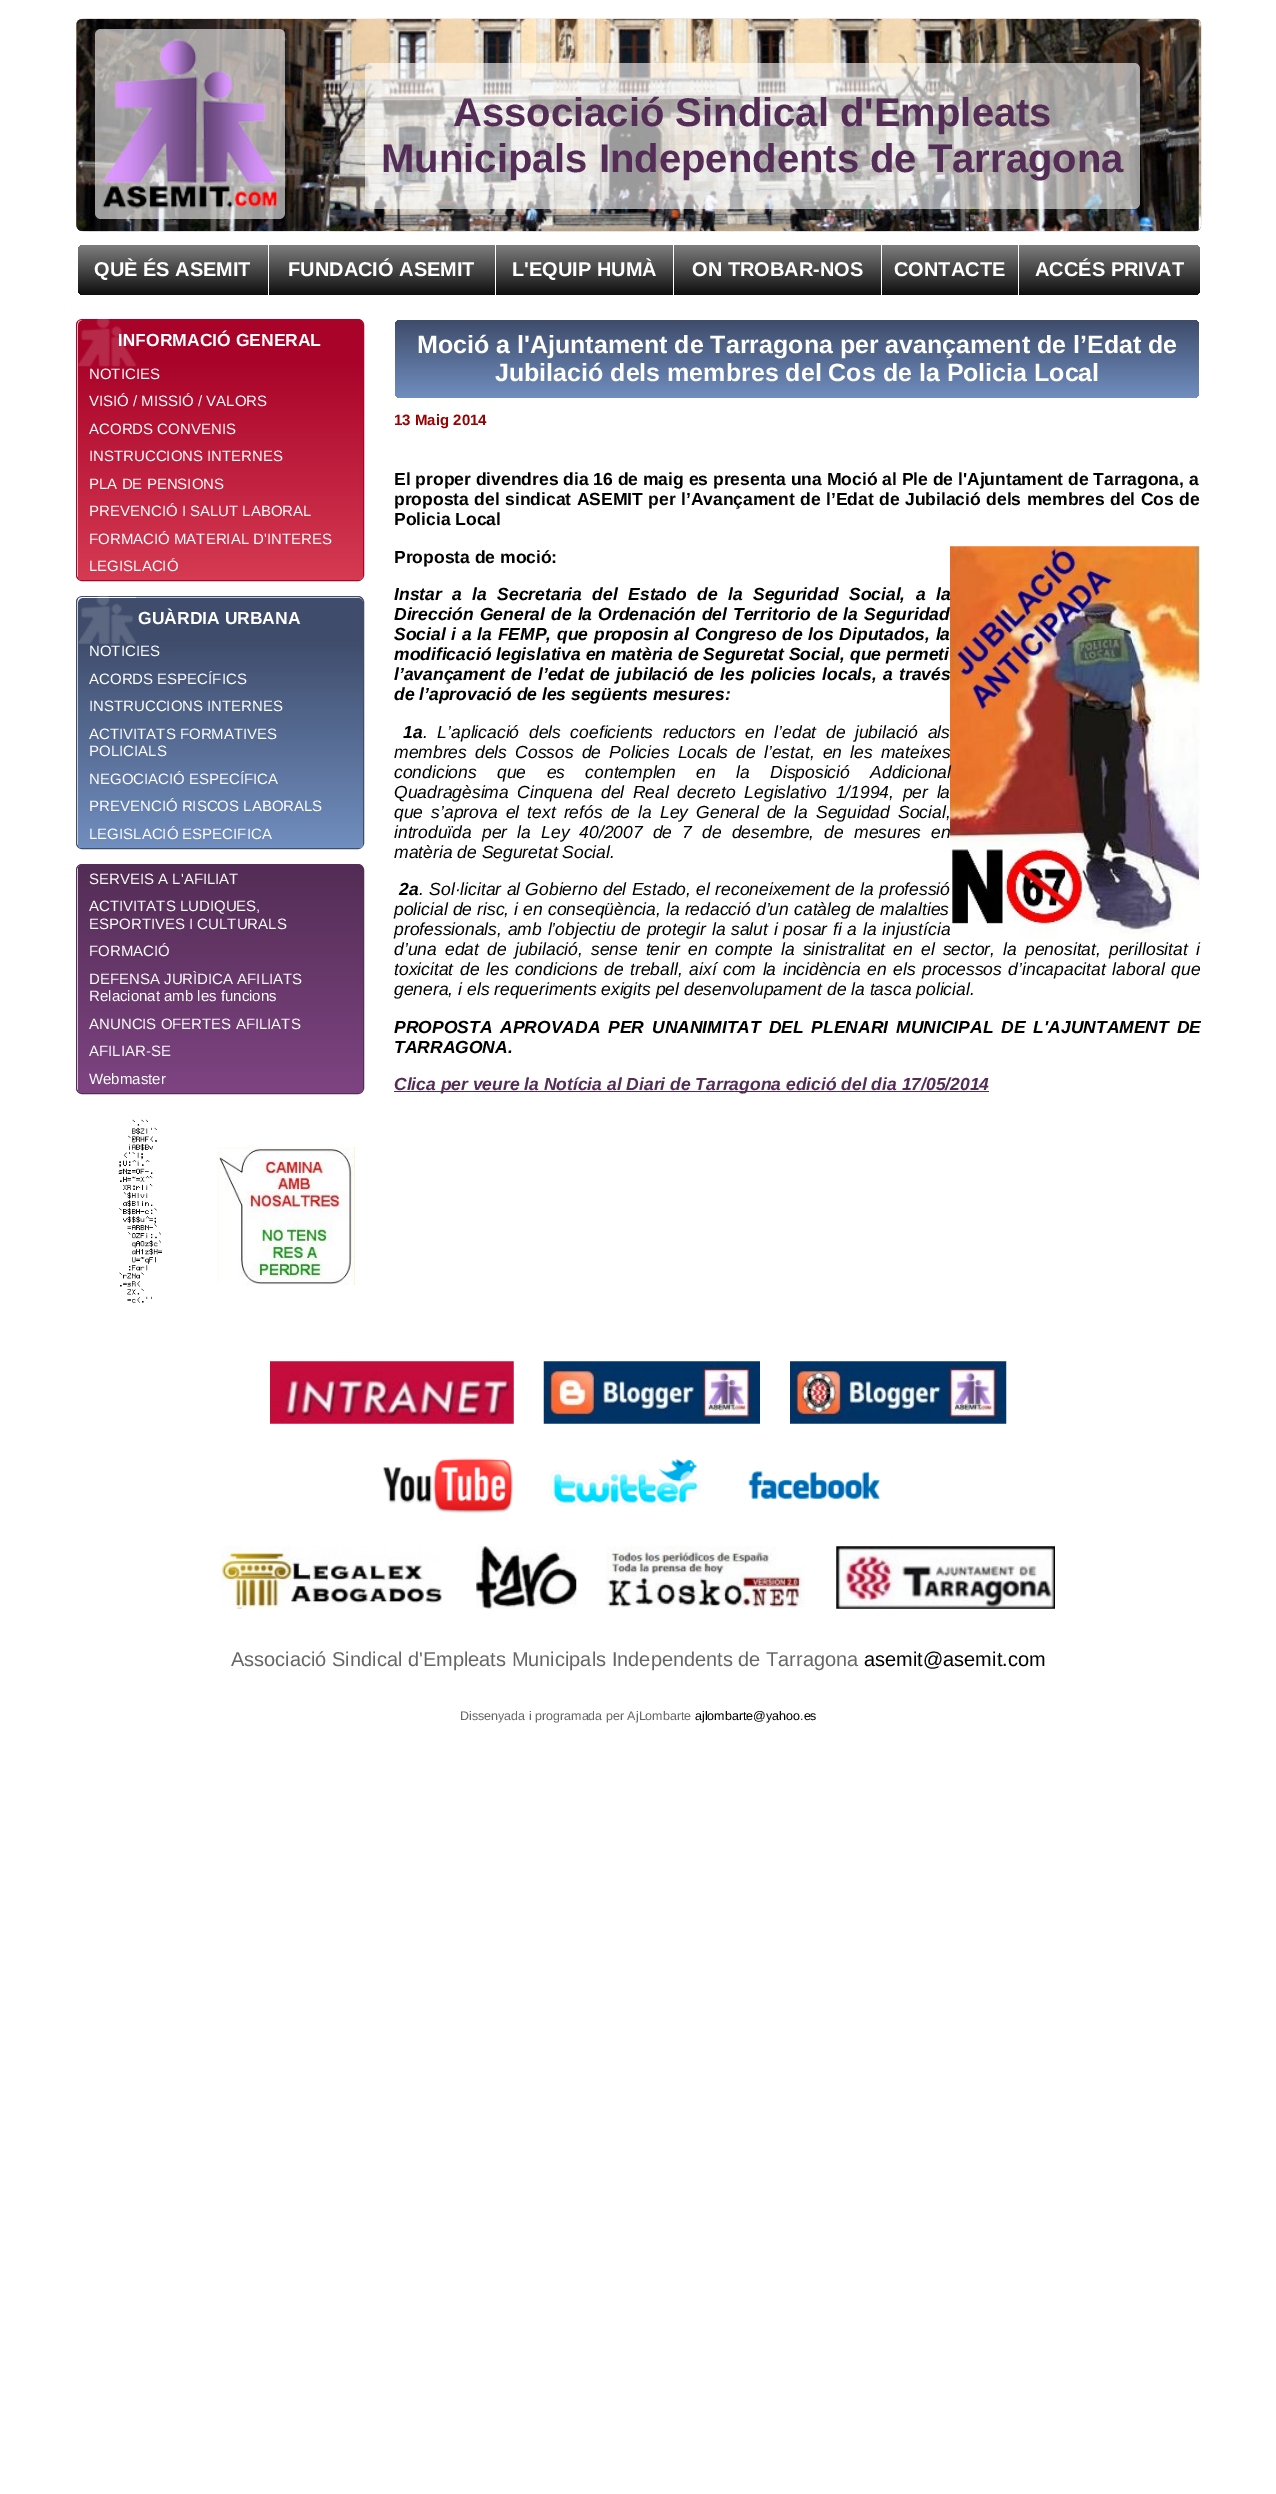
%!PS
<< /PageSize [1276 2494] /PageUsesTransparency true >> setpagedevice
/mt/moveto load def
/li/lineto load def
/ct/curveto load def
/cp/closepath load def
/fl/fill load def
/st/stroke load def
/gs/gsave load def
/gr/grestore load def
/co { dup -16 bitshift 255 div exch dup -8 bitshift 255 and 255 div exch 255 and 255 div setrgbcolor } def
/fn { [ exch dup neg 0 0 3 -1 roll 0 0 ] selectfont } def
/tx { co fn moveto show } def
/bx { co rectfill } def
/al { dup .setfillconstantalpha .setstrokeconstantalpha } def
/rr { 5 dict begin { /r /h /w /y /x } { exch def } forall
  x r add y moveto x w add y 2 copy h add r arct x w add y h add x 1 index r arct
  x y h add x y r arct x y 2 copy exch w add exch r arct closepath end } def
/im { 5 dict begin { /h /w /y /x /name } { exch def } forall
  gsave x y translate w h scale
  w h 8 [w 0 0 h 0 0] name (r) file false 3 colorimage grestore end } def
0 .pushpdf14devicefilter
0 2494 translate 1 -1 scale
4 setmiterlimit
0 0 1276 2494 16#FFFFFF bx
(media/1.raw) 76 18 1126 214 im
(media/2.raw) 76 18 1126 214 im
(media/3.raw) 76 18 1126 214 im
0.6 al
95 29 190 190 6 rr fl
1 al
(media/4.raw) 102 38 176 171 im
0.6 al
365 63 775 146 6 rr fl
1 al
gs 78 245 1122 50 5 rr clip newpath
<< /ShadingType 2 /ColorSpace /DeviceRGB /Coords [639 245 639 295] /Extend [true true] /Function << /FunctionType 2 /Domain [0 1] /C0 [.49 .494 .49] /C1 [.055 .055 .055] /N 1 >> >> shfill gr
268 245 1 50 16#FFFFFF bx
495 245 1 50 16#FFFFFF bx
673 245 1 50 16#FFFFFF bx
881 245 1 50 16#FFFFFF bx
1018 245 1 50 16#FFFFFF bx
16#A90329 co
76.5 319.5 287 261 5.5 rr st
83 320 mt 358 320 li 361 320 363 322 363 325 ct 363 360 li 78 360 li 78 325 li 78 322 80 320 83 320 ct cp fl
gs 78 360 mt 363 360 li 363 575 li 363 578 361 580 358 580 ct 83 580 li 80 580 78 578 78 575 ct cp clip newpath
<< /ShadingType 2 /ColorSpace /DeviceRGB /Coords [220 360 220 580] /Extend [true true] /Function << /FunctionType 2 /Domain [0 1] /C0 [.663 .012 .161] /C1 [.839 .231 .325] /N 1 >> >> shfill gr
16#3F4C6B co
76.5 596.5 287 252 5.5 rr st
83 598 mt 358 598 li 361 598 363 600 363 603 ct 363 638 li 78 638 li 78 603 li 78 600 80 598 83 598 ct cp fl
gs 78 638 mt 363 638 li 363 843 li 363 846 361 848 358 848 ct 83 848 li 80 848 78 846 78 843 ct cp clip newpath
<< /ShadingType 2 /ColorSpace /DeviceRGB /Coords [220 638 220 848] /Extend [true true] /Function << /FunctionType 2 /Domain [0 1] /C0 [.247 .298 .42] /C1 [.439 .557 .749] /N 1 >> >> shfill gr
(media/6.raw) 78 596 58 48 im
16#532D55 co
76.5 864.5 287 229 5.5 rr st
gs 78 865 285 228 5 rr clip newpath
<< /ShadingType 2 /ColorSpace /DeviceRGB /Coords [220 865 220 1093] /Extend [true true] /Function << /FunctionType 2 /Domain [0 1] /C0 [.325 .176 .333] /C1 [.494 .267 .51] /N 1 >> >> shfill gr
(media/7.raw) 118 1119 44 184 im
(media/8.raw) 217 1147 138 138 im
gs 395 320 804 78 5 rr clip newpath
<< /ShadingType 2 /ColorSpace /DeviceRGB /Coords [797 320 797 398] /Extend [true true] /Function << /FunctionType 2 /Domain [0 1] /C0 [.247 .298 .42] /C1 [.439 .557 .749] /N 1 >> >> shfill gr
(media/9.raw) 950 546 250 393 im
394 1091 595 1 16#532D55 bx
(media/10.raw) 270 1361 244 63 im
(media/11.raw) 543 1361 217 63 im
(media/12.raw) 790 1361 217 63 im
(media/13.raw) 382 1458 132 56 im
(media/14.raw) 550 1458 151 48 im
(media/15.raw) 748 1471 133 28 im
(media/16.raw) 221 1546 221 63 im
(media/17.raw) 476 1546 101 63 im
(media/18.raw) 606 1546 199 62 im
(media/19.raw) 836 1546 219 63 im
(Associació Sindical d'Empleats) 453 126 /LiberationSans-Bold 40 16#532D55 tx
(Municipals Independents de Tarragona) 381 172 /LiberationSans-Bold 40 16#532D55 tx
(QUÈ ÉS ASEMIT) 94 276 /LiberationSans-Bold 20 16#FFFFFF tx
(FUNDACIÓ ASEMIT) 288 276 /LiberationSans-Bold 20 16#FFFFFF tx
(L'EQUIP HUMÀ) 512 276 /LiberationSans-Bold 20 16#FFFFFF tx
(ON TROBAR-NOS) 692 276 /LiberationSans-Bold 20 16#FFFFFF tx
(CONTACTE) 894 276 /LiberationSans-Bold 20 16#FFFFFF tx
(ACCÉS PRIVAT) 1035 276 /LiberationSans-Bold 20 16#FFFFFF tx
(INFORMACIÓ GENERAL) 118 346 /LiberationSans-Bold 17.5 16#FFFFFF tx
(media/5.raw) 78 319 59 48 im
(NOTICIES) 89 379 /LiberationSans-Regular 15 16#FFFFFF tx
(VISIÓ / MISSIÓ / VALORS) 89 406 /LiberationSans-Regular 15 16#FFFFFF tx
(ACORDS CONVENIS) 89 434 /LiberationSans-Regular 15 16#FFFFFF tx
(INSTRUCCIONS INTERNES) 89 461 /LiberationSans-Regular 15 16#FFFFFF tx
(PLA DE PENSIONS) 89 489 /LiberationSans-Regular 15 16#FFFFFF tx
(PREVENCIÓ I SALUT LABORAL) 89 516 /LiberationSans-Regular 15 16#FFFFFF tx
(FORMACIÓ MATERIAL D'INTERES) 89 544 /LiberationSans-Regular 15 16#FFFFFF tx
(LEGISLACIÓ) 89 571 /LiberationSans-Regular 15 16#FFFFFF tx
(GUÀRDIA URBANA) 138 624 /LiberationSans-Bold 17.5 16#FFFFFF tx
(NOTICIES) 89 656 /LiberationSans-Regular 15 16#FFFFFF tx
(ACORDS ESPECÍFICS) 89 684 /LiberationSans-Regular 15 16#FFFFFF tx
(INSTRUCCIONS INTERNES) 89 711 /LiberationSans-Regular 15 16#FFFFFF tx
(ACTIVITATS FORMATIVES) 89 739 /LiberationSans-Regular 15 16#FFFFFF tx
(POLICIALS) 89 756 /LiberationSans-Regular 15 16#FFFFFF tx
(NEGOCIACIÓ ESPECÍFICA) 89 784 /LiberationSans-Regular 15 16#FFFFFF tx
(PREVENCIÓ RISCOS LABORALS) 89 811 /LiberationSans-Regular 15 16#FFFFFF tx
(LEGISLACIÓ ESPECIFICA) 89 839 /LiberationSans-Regular 15 16#FFFFFF tx
(SERVEIS A L'AFILIAT) 89 884 /LiberationSans-Regular 15 16#FFFFFF tx
(ACTIVITATS LUDIQUES,) 89 911 /LiberationSans-Regular 15 16#FFFFFF tx
(ESPORTIVES I CULTURALS) 89 929 /LiberationSans-Regular 15 16#FFFFFF tx
(FORMACIÓ) 89 956 /LiberationSans-Regular 15 16#FFFFFF tx
(DEFENSA JURÌDICA AFILIATS) 89 984 /LiberationSans-Regular 15 16#FFFFFF tx
(Relacionat amb les funcions) 89 1001 /LiberationSans-Regular 15 16#FFFFFF tx
(ANUNCIS OFERTES AFILIATS) 89 1029 /LiberationSans-Regular 15 16#FFFFFF tx
(AFILIAR-SE) 89 1056 /LiberationSans-Regular 15 16#FFFFFF tx
(Webmaster) 89 1084 /LiberationSans-Regular 15 16#FFFFFF tx
(Moció a l'Ajuntament de Tarragona per avançament de l’Edat de) 417 353 /LiberationSans-Bold 25 16#FFFFFF tx
(Jubilació dels membres del Cos de la Policia Local) 495 381 /LiberationSans-Bold 25 16#FFFFFF tx
(13 Maig 2014) 394 425 /LiberationSans-Bold 15 16#990000 tx
(El proper divendres dia 16 de maig es presenta una Moció al Ple de l'Ajuntament de Tarragona, a) 394 485 /LiberationSans-Bold 17.5 16#000000 tx
394 505 mt .6 0 32 (proposta del sindicat ASEMIT per l’Avançament de l’Edat de Jubilació dels membres del Cos de) widthshow
(Policia Local) 394 525 /LiberationSans-Bold 17.5 16#000000 tx
(Proposta de moció:) 394 563 /LiberationSans-Bold 17.5 16#000000 tx
/LiberationSans-BoldItalic 17.5 fn
394 600 mt 5.6 0 32 (Instar a la Secretaria del Estado de la Seguridad Social, a la) widthshow
394 620 mt 1.25 0 32 (Dirección General de la Ordenación del Territorio de la Seguridad) widthshow
394 640 mt .9 0 32 (Social i a la FEMP, que proposin al Congreso de los Diputados, la) widthshow
(modificació legislativa en matèria de Seguretat Social, que permeti) 394 660 /LiberationSans-BoldItalic 17.5 16#000000 tx
394 680 mt 1.4 0 32 (l’avançament de l’edat de jubilació de les policies locals, a través) widthshow
(de l’aprovació de les següents mesures:) 394 700 /LiberationSans-BoldItalic 17.5 16#000000 tx
(1a) 403 738 /LiberationSans-BoldItalic 17.5 16#000000 tx
/LiberationSans-Italic 17.5 fn
423 738 mt 4.75 0 32 (. L’aplicació dels coeficients reductors en l’edat de jubilació als) widthshow
394 758 mt 3.25 0 32 (membres dels Cossos de Policies Locals de l’estat, en les mateixes) widthshow
394 778 mt 15.5 0 32 (condicions que es contemplen en la Disposició Addicional) widthshow
394 798 mt 3.75 0 32 (Quadragèsima Cinquena del Real decreto Legislativo 1/1994, per la) widthshow
394 818 mt 3.25 0 32 (que s’aprova el text refós de la Ley General de la Seguidad Social,) widthshow
394 838 mt 5.25 0 32 (introduïda per la Ley 40/2007 de 7 de desembre, de mesures en) widthshow
(matèria de Seguretat Social.) 394 858 /LiberationSans-Italic 17.5 16#000000 tx
(2a) 399 895 /LiberationSans-BoldItalic 17.5 16#000000 tx
/LiberationSans-Italic 17.5 fn
419 895 mt .5 0 32 (. Sol·licitar al Gobierno del Estado, el reconeixement de la professió) widthshow
394 915 mt .25 0 32 (policial de risc, i en conseqüència, la redacció d’un catàleg de malalties) widthshow
394 935 mt .9 0 32 (professionals, amb l’objectiu de protegir la salut i posar fi a la injustícia) widthshow
394 955 mt 3.25 0 32 (d’una edat de jubilació, sense tenir en compte la sinistralitat en el sector, la penositat, perillositat i) widthshow
394 975 mt 1.7 0 32 (toxicitat de les condicions de treball, així com la incidència en els processos d’incapacitat laboral que) widthshow
(genera, i els requeriments exigits pel desenvolupament de la tasca policial.) 394 995 /LiberationSans-Italic 17.5 16#000000 tx
/LiberationSans-BoldItalic 17.5 fn
394 1033 mt 3 0 32 (PROPOSTA APROVADA PER UNANIMITAT DEL PLENARI MUNICIPAL DE L'AJUNTAMENT DE) widthshow
(TARRAGONA.) 394 1053 /LiberationSans-BoldItalic 17.5 16#000000 tx
(Clica per veure la Notícia al Diari de Tarragona edició del dia 17/05/2014) 394 1090 /LiberationSans-BoldItalic 17.5 16#532D55 tx
(Associació Sindical d'Empleats Municipals Independents de Tarragona) 231 1666 /LiberationSans-Regular 20 16#666666 tx
(asemit@asemit.com) 864 1666 /LiberationSans-Regular 20 16#000000 tx
(Dissenyada i programada per AjLombarte) 460 1720 /LiberationSans-Regular 12.5 16#666666 tx
(ajlombarte@yahoo.es) 695 1720 /LiberationSans-Regular 12.5 16#000000 tx
.poppdf14devicefilter showpage
